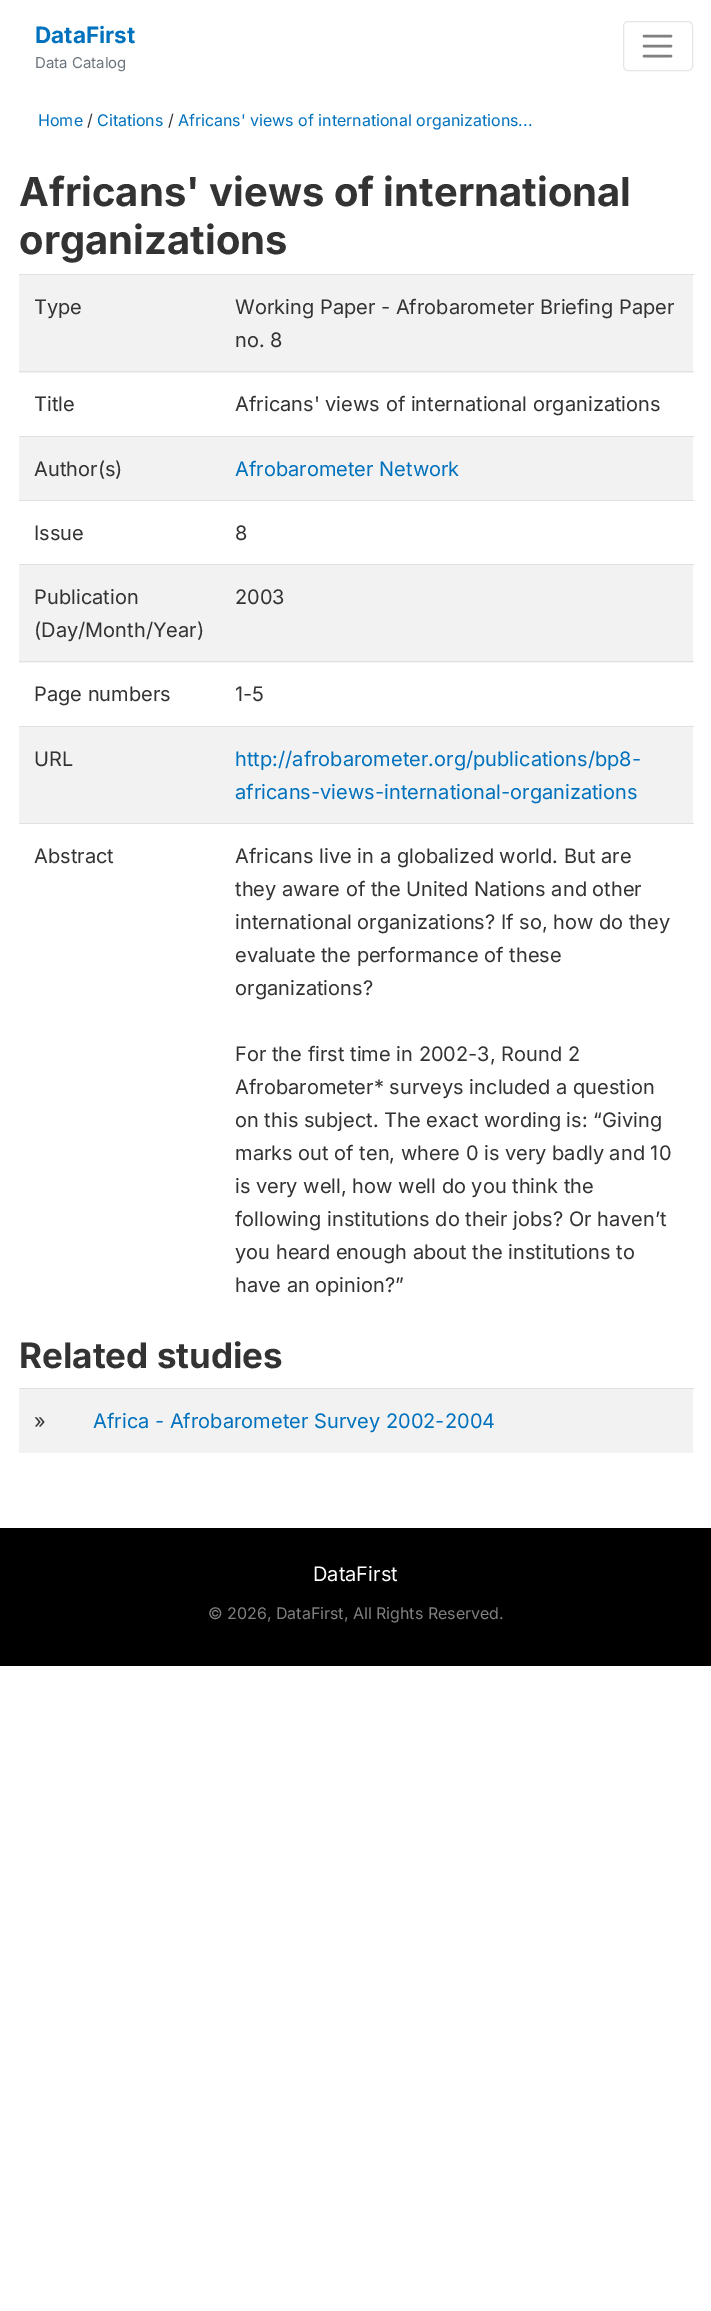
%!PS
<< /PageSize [711 2311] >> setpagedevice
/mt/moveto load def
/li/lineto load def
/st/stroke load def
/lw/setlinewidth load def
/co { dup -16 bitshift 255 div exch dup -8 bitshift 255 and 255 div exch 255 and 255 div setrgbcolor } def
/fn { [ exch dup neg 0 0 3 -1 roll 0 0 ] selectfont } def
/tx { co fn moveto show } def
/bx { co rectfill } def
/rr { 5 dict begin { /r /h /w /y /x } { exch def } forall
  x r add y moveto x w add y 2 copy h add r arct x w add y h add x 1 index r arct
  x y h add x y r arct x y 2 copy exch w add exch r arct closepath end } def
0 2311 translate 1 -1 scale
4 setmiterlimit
0 0 711 2311 16#FFFFFF bx
16#E6E6E6 co
623.5 21.5 69 49 4.5 rr st
16#808080 co
2.5 lw
1 setlinecap
644 36 mt 671 36 li 644 46 mt 671 46 li 644 56 mt 671 56 li st
19 275 674 98 16#F2F2F2 bx
19 274 675 1 16#DEE2E6 bx
19 371 675 1 16#DEE2E6 bx
19 437 674 63 16#F2F2F2 bx
19 436 675 1 16#DEE2E6 bx
19 500 675 1 16#DEE2E6 bx
19 565 674 98 16#F2F2F2 bx
19 564 675 1 16#DEE2E6 bx
19 661 675 1 16#DEE2E6 bx
19 727 674 96 16#F2F2F2 bx
19 726 675 1 16#DEE2E6 bx
19 823 675 1 16#DEE2E6 bx
19 1389 674 64 16#F2F2F2 bx
19 1388 675 1 16#DEE2E6 bx
0 1528 711 138 16#000000 bx
(DataFirst) 35 43 /Inter-Bold 22.5 16#0071BD tx
(Data Catalog) 35 68 /Inter-Regular 15 16#6C757D tx
(Home) 38 126 /Inter-Regular 16 16#0071BD tx
(/) 87 126 /Inter-Regular 16 16#333333 tx
(Citations) 97 126 /Inter-Regular 16 16#0071BD tx
(/) 168 126 /Inter-Regular 16 16#333333 tx
(Africans' views of international organizations...) 178 126 /Inter-Regular 16 16#0071BD tx
(Africans' views of international) 19 206 /Inter-Bold 40 16#333333 tx
(organizations) 19 254 /Inter-Bold 40 16#333333 tx
(Type) 34 314 /Inter-Regular 20 16#333333 tx
(Working Paper - Afrobarometer Briefing Paper) 235 314 /Inter-Regular 20 16#333333 tx
(no. 8) 235 347 /Inter-Regular 20 16#333333 tx
(Title) 34 411 /Inter-Regular 20 16#333333 tx
(Africans' views of international organizations) 235 411 /Inter-Regular 20 16#333333 tx
(Author\(s\)) 34 476 /Inter-Regular 20 16#333333 tx
(Afrobarometer Network) 235 476 /Inter-Regular 20 16#0071BD tx
(Issue) 34 540 /Inter-Regular 20 16#333333 tx
(8) 235 540 /Inter-Regular 20 16#333333 tx
(Publication) 34 604 /Inter-Regular 20 16#333333 tx
(\(Day/Month/Year\)) 34 637 /Inter-Regular 20 16#333333 tx
(2003) 235 604 /Inter-Regular 20 16#333333 tx
(Page numbers) 34 701 /Inter-Regular 20 16#333333 tx
(1-5) 235 701 /Inter-Regular 20 16#333333 tx
(URL) 34 766 /Inter-Regular 20 16#333333 tx
(http://afrobarometer.org/publications/bp8-) 235 766 /Inter-Regular 20 16#0071BD tx
(africans-views-international-organizations) 235 799 /Inter-Regular 20 16#0071BD tx
(Abstract) 34 863 /Inter-Regular 20 16#333333 tx
(Africans live in a globalized world. But are) 235 863 /Inter-Regular 20 16#333333 tx
(they aware of the United Nations and other) 235 896 /Inter-Regular 20 16#333333 tx
(international organizations? If so, how do they) 235 929 /Inter-Regular 20 16#333333 tx
(evaluate the performance of these) 235 962 /Inter-Regular 20 16#333333 tx
(organizations?) 235 995 /Inter-Regular 20 16#333333 tx
(For the first time in 2002-3, Round 2) 235 1061 /Inter-Regular 20 16#333333 tx
(Afrobarometer* surveys included a question) 235 1094 /Inter-Regular 20 16#333333 tx
(on this subject. The exact wording is: “Giving) 235 1127 /Inter-Regular 20 16#333333 tx
(marks out of ten, where 0 is very badly and 10) 235 1160 /Inter-Regular 20 16#333333 tx
(is very well, how well do you think the) 235 1193 /Inter-Regular 20 16#333333 tx
(following institutions do their jobs? Or haven’t) 235 1226 /Inter-Regular 20 16#333333 tx
(you heard enough about the institutions to) 235 1259 /Inter-Regular 20 16#333333 tx
(have an opinion?”) 235 1292 /Inter-Regular 20 16#333333 tx
(Related studies) 19 1368 /Inter-Bold 35 16#333333 tx
(») 34 1428 /Inter-Regular 20 16#333333 tx
(Africa - Afrobarometer Survey 2002-2004) 93 1428 /Inter-Regular 20 16#0071BD tx
(DataFirst) 313 1581 /Inter-Regular 20 16#FFFFFF tx
(© 2026, DataFirst, All Rights Reserved.) 208 1619 /Inter-Regular 16 16#808080 tx
showpage
